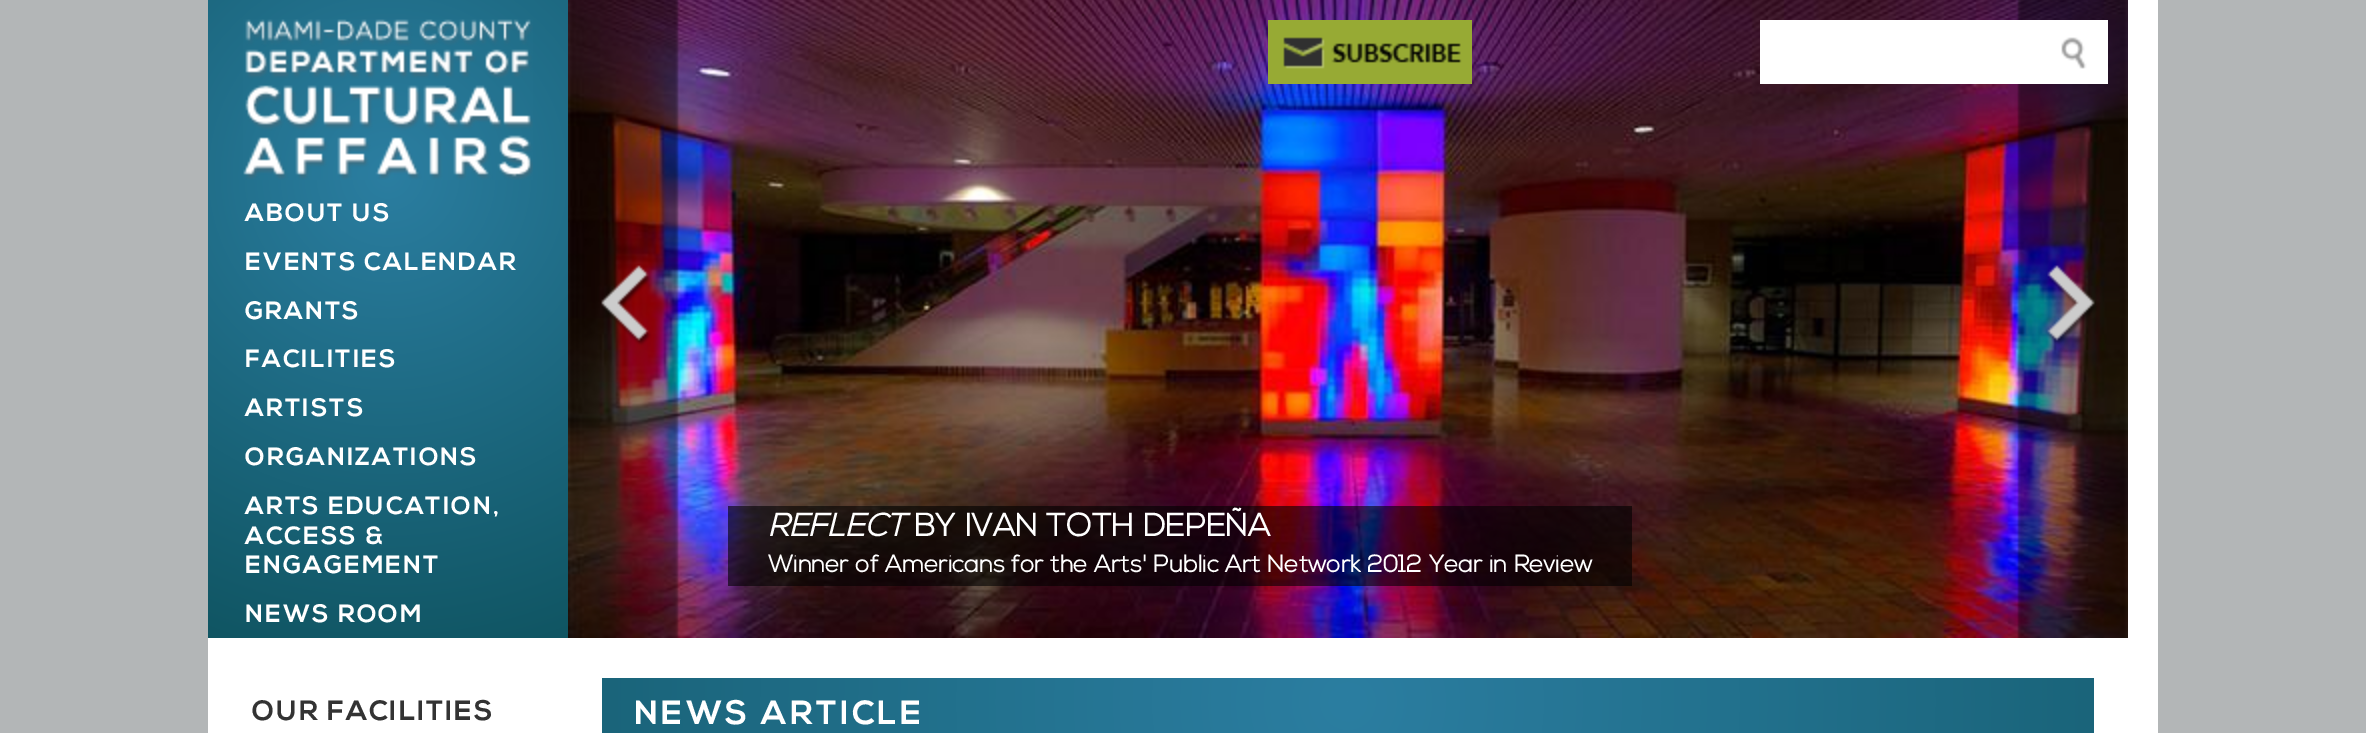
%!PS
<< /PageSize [2366 733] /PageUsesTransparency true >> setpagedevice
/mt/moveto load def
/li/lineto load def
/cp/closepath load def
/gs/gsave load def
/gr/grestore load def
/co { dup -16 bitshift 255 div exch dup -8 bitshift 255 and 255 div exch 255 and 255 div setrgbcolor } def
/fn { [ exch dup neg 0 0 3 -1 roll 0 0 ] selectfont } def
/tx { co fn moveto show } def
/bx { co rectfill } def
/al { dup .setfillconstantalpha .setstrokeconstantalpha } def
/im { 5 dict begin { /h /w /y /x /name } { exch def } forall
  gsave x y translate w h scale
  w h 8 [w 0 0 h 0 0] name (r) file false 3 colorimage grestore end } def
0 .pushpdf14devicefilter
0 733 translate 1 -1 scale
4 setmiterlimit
0 0 2366 733 16#B3B6B7 bx
208 0 1950 733 16#FFFFFF bx
gs 208 0 mt 568 0 li 568 638 li 208 638 li cp clip newpath 388 175 translate 646 646 scale
<< /ShadingType 3 /ColorSpace /DeviceRGB /Coords [0 0 0 0 0 1] /Extend [true true] /Function << /FunctionType 2 /Domain [0 1] /C0 [.169 .494 .631] /C1 [.031 .286 .314] /N 1 >> >> shfill gr
(media/1.raw) 243 19 290 161 im
(media/6.raw) 568 0 1560 638 im
1268 20 204 64 16#97AA34 bx
(media/2.raw) 1283 37 179 32 im
(media/5.raw) 2017 0 111 638 im
1760 20 348 64 16#FFFFFF bx
(media/3.raw) 2061 37 26 32 im
(media/4.raw) 568 0 111 638 im
0.6 al
728 506 904 40 16#000000 bx
728 546 904 40 16#000000 bx
1 al
gs 602 678 mt 2094 678 li 2094 733 li 602 733 li cp clip newpath 1348 702 translate 1567 1567 scale
<< /ShadingType 3 /ColorSpace /DeviceRGB /Coords [0 0 0 0 0 1] /Extend [true true] /Function << /FunctionType 2 /Domain [0 1] /C0 [.169 .494 .631] /C1 [.031 .286 .314] /N 1 >> >> shfill gr
/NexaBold-Bold 25 fn
16#FFFFFF co
245 221 mt 2.1 0 (ABOUT US) ashow
245 270 mt 2.1 0 (EVENTS CALENDAR) ashow
245 319 mt 2.1 0 (GRANTS) ashow
245 367 mt 2.1 0 (FACILITIES) ashow
245 416 mt 2.1 0 (ARTISTS) ashow
245 465 mt 2.1 0 (ORGANIZATIONS) ashow
245 514 mt 2.1 0 (ARTS EDUCATION,) ashow
245 544 mt 2.1 0 (ACCESS &) ashow
245 573 mt 2.1 0 (ENGAGEMENT) ashow
245 622 mt 2.1 0 (NEWS ROOM) ashow
(REFLECT) 768 536 /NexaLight-BoldItalic 32 16#FFFFFF tx
(BY IVAN TOTH DEPEÑA) 914 536 /NexaLight-Bold 32 16#FFFFFF tx
(Winner of Americans for the Arts' Public Art Network 2012 Year in Review) 768 572 /NexaLight-Bold 24 16#FFFFFF tx
/NexaBold-Bold 28 fn
16#333333 co
252 720 mt 2 0 (OUR FACILITIES) ashow
/NexaBold-Bold 33.5 fn
16#FFFFFF co
634 724 mt 3.4 0 (NEWS ARTICLE) ashow
.poppdf14devicefilter showpage
